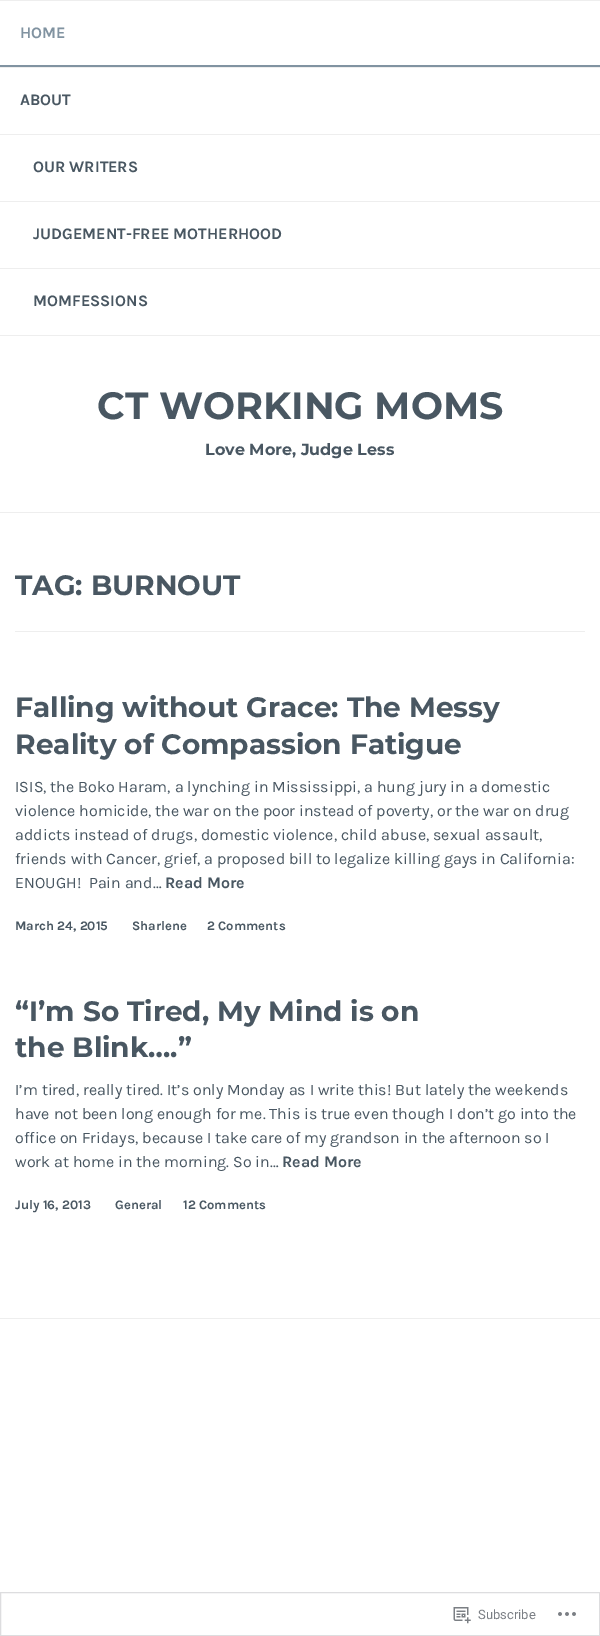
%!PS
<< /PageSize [600 1636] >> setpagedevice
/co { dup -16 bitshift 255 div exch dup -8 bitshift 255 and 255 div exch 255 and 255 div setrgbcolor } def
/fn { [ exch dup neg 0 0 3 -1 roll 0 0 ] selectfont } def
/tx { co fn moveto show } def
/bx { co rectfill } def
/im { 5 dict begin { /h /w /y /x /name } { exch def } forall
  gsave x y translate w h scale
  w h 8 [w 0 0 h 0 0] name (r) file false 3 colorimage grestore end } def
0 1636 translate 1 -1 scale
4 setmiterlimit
0 0 600 1636 16#FFFFFF bx
0 335 600 1 16#EEEEEE bx
0 0 600 1 16#EEEEEE bx
0 65 600 2 16#8193A1 bx
0 67 600 1 16#EEEEEE bx
0 134 600 1 16#EEEEEE bx
0 201 600 1 16#EEEEEE bx
0 268 600 1 16#EEEEEE bx
0 512 600 1 16#EEEEEE bx
15 631 570 1 16#EEEEEE bx
0 1318 600 1 16#EEEEEE bx
16#DDDDDF co
.5 1592.5 599 43 rectstroke
(media/1.raw) 453 1607 18 17 im
(media/2.raw) 558 1612 18 4 im
(HOME) 20 38 /Karla-Bold 16 16#8193A1 tx
(ABOUT) 20 105 /Karla-Bold 16 16#495762 tx
(OUR WRITERS) 33 172 /Karla-Bold 16 16#495762 tx
(JUDGEMENT-FREE MOTHERHOOD) 33 239 /Karla-Bold 16 16#495762 tx
(MOMFESSIONS) 33 306 /Karla-Bold 16 16#495762 tx
(CT WORKING MOMS) 97 419 /Montserrat-Bold 38 16#495762 tx
(Love More, Judge Less) 205 455 /Montserrat-Bold 16 16#495762 tx
(TAG: BURNOUT) 15 595 /Montserrat-Bold 28 16#495762 tx
(Falling without Grace: The Messy) 15 717 /Montserrat-Bold 28 16#495762 tx
(Reality of Compassion Fatigue) 15 754 /Montserrat-Bold 28 16#495762 tx
(ISIS, the Boko Haram, a lynching in Mississippi, a hung jury in a domestic) 15 792 /Karla-Regular 16 16#495762 tx
(violence homicide, the war on the poor instead of poverty, or the war on drug) 15 816 /Karla-Regular 16 16#495762 tx
(addicts instead of drugs, domestic violence, child abuse, sexual assault,) 15 840 /Karla-Regular 16 16#495762 tx
(friends with Cancer, grief, a proposed bill to legalize killing gays in California:) 15 864 /Karla-Regular 16 16#495762 tx
(ENOUGH!  Pain and…) 15 888 /Karla-Regular 16 16#495762 tx
(Read More) 165 888 /Karla-Bold 16 16#495762 tx
(March 24, 2015) 15 930 /Karla-Bold 13 16#495762 tx
(Sharlene) 132 930 /Karla-Bold 13 16#495762 tx
(2 Comments) 207 930 /Karla-Bold 13 16#495762 tx
(“I’m So Tired, My Mind is on) 15 1021 /Montserrat-Bold 28 16#495762 tx
(the Blink….”) 15 1057 /Montserrat-Bold 28 16#495762 tx
(I’m tired, really tired. It’s only Monday as I write this! But lately the weekends) 15 1095 /Karla-Regular 16 16#495762 tx
(have not been long enough for me. This is true even though I don’t go into the) 15 1119 /Karla-Regular 16 16#495762 tx
(office on Fridays, because I take care of my grandson in the afternoon so I) 15 1143 /Karla-Regular 16 16#495762 tx
(work at home in the morning. So in…) 15 1167 /Karla-Regular 16 16#495762 tx
(Read More) 282 1167 /Karla-Bold 16 16#495762 tx
(July 16, 2013) 15 1209 /Karla-Bold 13 16#495762 tx
(General) 115 1209 /Karla-Bold 13 16#495762 tx
(12 Comments) 183 1209 /Karla-Bold 13 16#495762 tx
(Subscribe) 478 1619 /Roboto-Regular 13 16#7B7F85 tx
showpage
